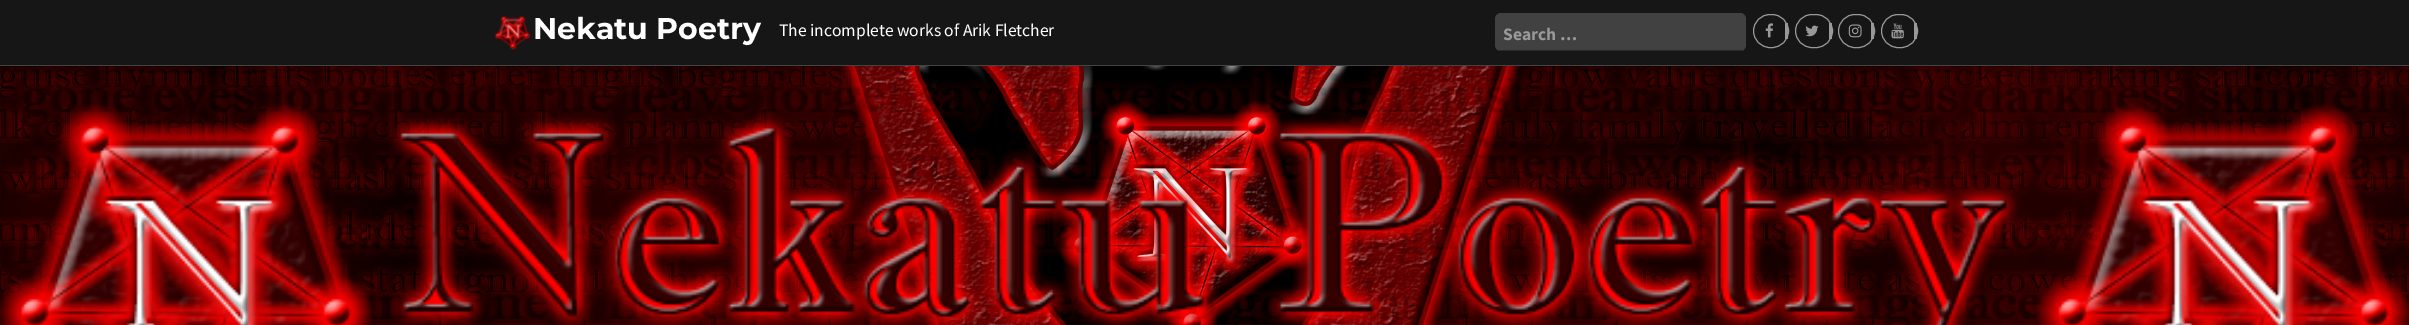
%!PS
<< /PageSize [2409 325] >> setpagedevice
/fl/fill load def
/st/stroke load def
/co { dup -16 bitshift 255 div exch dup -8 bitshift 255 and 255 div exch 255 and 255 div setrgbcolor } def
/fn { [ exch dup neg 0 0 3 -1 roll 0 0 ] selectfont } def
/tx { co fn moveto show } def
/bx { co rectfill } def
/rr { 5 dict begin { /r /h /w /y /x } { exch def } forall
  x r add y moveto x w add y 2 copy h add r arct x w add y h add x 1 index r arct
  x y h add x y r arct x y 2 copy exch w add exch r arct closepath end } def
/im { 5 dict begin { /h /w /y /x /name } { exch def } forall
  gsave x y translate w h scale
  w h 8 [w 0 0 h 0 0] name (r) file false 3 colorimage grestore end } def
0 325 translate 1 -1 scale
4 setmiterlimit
0 0 2409 325 16#FFFFFF bx
(media/1.raw) 0 66 2409 259 im
0 0 2409 65 16#161616 bx
0 65 2409 1 16#434343 bx
(media/2.raw) 494 15 37 35 im
16#414141 co
1495 13 251 38 6 rr fl
1499 50 245 1 16#2A2A2A bx
16#999999 co
1753.5 14.5 35 33 16.5 rr st
1785 23 3 16 16#999999 bx
(media/3.raw) 1765 23 8 15 im
1795.5 14.5 37 33 16.5 rr st
1829 23 3 16 16#999999 bx
(media/4.raw) 1805 25 14 12 im
1838.5 14.5 36 33 16.5 rr st
1871 23 3 16 16#999999 bx
(media/5.raw) 1848 24 14 14 im
1881.5 14.5 36 33 16.5 rr st
1914 23 3 16 16#999999 bx
(media/6.raw) 1891 23 13 16 im
(media/7.raw) 0 66 2409 259 im
(Nekatu Poetry) 533 39 /Montserrat-Bold 30 16#FFFFFF tx
(The incomplete works of Arik Fletcher) 779 36 /SourceSansPro-Regular 17.5 16#FFFFFF tx
(Search …) 1503 40 /SourceSansPro-Bold 17.5 16#999999 tx
showpage
